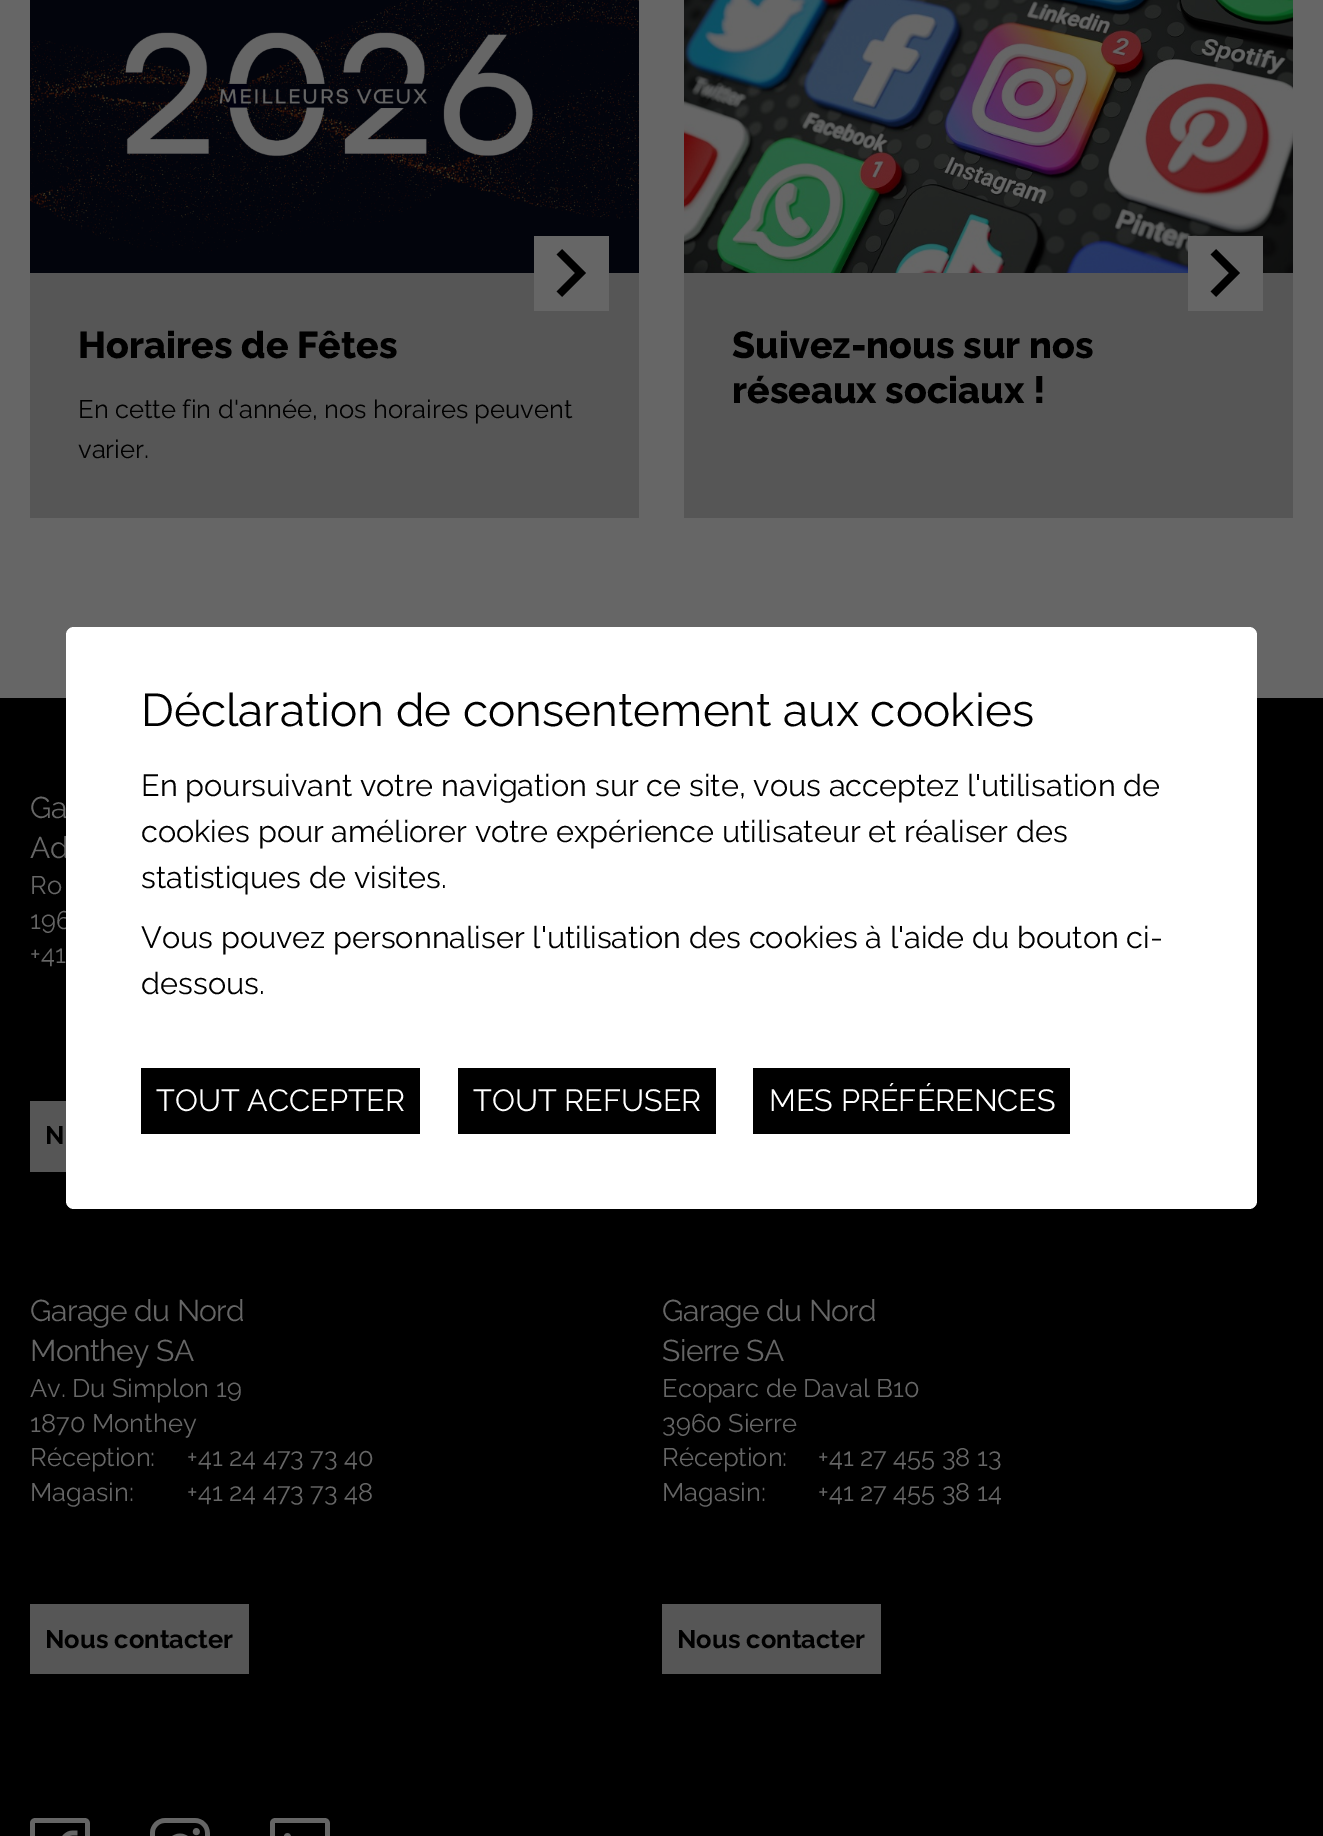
%!PS
<< /PageSize [1323 1836] >> setpagedevice
/mt/moveto load def
/fl/fill load def
/co { dup -16 bitshift 255 div exch dup -8 bitshift 255 and 255 div exch 255 and 255 div setrgbcolor } def
/fn { [ exch dup neg 0 0 3 -1 roll 0 0 ] selectfont } def
/tx { co fn moveto show } def
/bx { co rectfill } def
/rr { 5 dict begin { /r /h /w /y /x } { exch def } forall
  x r add y moveto x w add y 2 copy h add r arct x w add y h add x 1 index r arct
  x y h add x y r arct x y 2 copy exch w add exch r arct closepath end } def
/im { 5 dict begin { /h /w /y /x /name } { exch def } forall
  gsave x y translate w h scale
  w h 8 [w 0 0 h 0 0] name (r) file false 3 colorimage grestore end } def
0 1836 translate 1 -1 scale
4 setmiterlimit
0 0 1323 1836 16#666666 bx
(media/1.raw) 30 0 609 273 im
30 273 609 245 16#565656 bx
534 236 75 75 16#666666 bx
(media/2.raw) 556 249 30 48 im
(media/3.raw) 684 0 609 273 im
684 273 609 245 16#565656 bx
1188 236 75 75 16#666666 bx
(media/2.raw) 1210 249 30 48 im
0 698 1323 1138 16#000000 bx
30 1101 36 71 16#565656 bx
30 1604 219 70 16#565656 bx
662 1604 219 70 16#565656 bx
(media/4.raw) 30 1818 60 18 im
(media/5.raw) 150 1818 60 18 im
(media/6.raw) 270 1818 60 18 im
(Horaires de Fêtes) 78 358 /Raleway-ExtraBold 37.5 16#000000 tx
(En cette fin d'année, nos horaires peuvent) 78 418 /Raleway-Regular 25.5 16#000000 tx
(varier.) 78 458 /Raleway-Regular 25.5 16#000000 tx
(Suivez-nous sur nos) 732 358 /Raleway-ExtraBold 37.5 16#000000 tx
(réseaux sociaux !) 732 403 /Raleway-ExtraBold 37.5 16#000000 tx
/Raleway-Regular 30 fn
16#666666 co
30 818 mt -.6 0 (Ga) ashow
30 858 mt -.6 0 (Ad) ashow
(Ro) 30 894 /Raleway-Regular 25.5 16#666666 tx
(196) 30 929 /Raleway-Regular 25.5 16#666666 tx
(+41) 30 963 /Raleway-Regular 25.5 16#666666 tx
(N) 45 1144 /Raleway-Bold 25.5 16#000000 tx
/Raleway-Regular 30 fn
16#666666 co
30 1321 mt -.6 0 (Garage du Nord) ashow
30 1361 mt -.6 0 (Monthey SA) ashow
(Av. Du Simplon 19) 30 1397 /Raleway-Regular 25.5 16#666666 tx
(1870 Monthey) 30 1432 /Raleway-Regular 25.5 16#666666 tx
(Réception:) 30 1466 /Raleway-Regular 25.5 16#666666 tx
(+41 24 473 73 40) 187 1466 /Raleway-Regular 25.5 16#666666 tx
(Magasin:) 30 1501 /Raleway-Regular 25.5 16#666666 tx
(+41 24 473 73 48) 187 1501 /Raleway-Regular 25.5 16#666666 tx
(Nous contacter) 45 1648 /Raleway-Bold 25.5 16#000000 tx
/Raleway-Regular 30 fn
16#666666 co
662 1321 mt -.6 0 (Garage du Nord) ashow
662 1361 mt -.6 0 (Sierre SA) ashow
(Ecoparc de Daval B10) 662 1397 /Raleway-Regular 25.5 16#666666 tx
(3960 Sierre) 662 1432 /Raleway-Regular 25.5 16#666666 tx
(Réception:) 662 1466 /Raleway-Regular 25.5 16#666666 tx
(+41 27 455 38 13) 818 1466 /Raleway-Regular 25.5 16#666666 tx
(Magasin:) 662 1501 /Raleway-Regular 25.5 16#666666 tx
(+41 27 455 38 14) 818 1501 /Raleway-Regular 25.5 16#666666 tx
(Nous contacter) 677 1648 /Raleway-Bold 25.5 16#000000 tx
16#FFFFFF co
66 627 1191 582 8 rr fl
(Déclaration de consentement aux cookies) 141 726 /Raleway-Regular 45.9 16#000000 tx
(En poursuivant votre navigation sur ce site, vous acceptez l'utilisation de) 141 796 /Raleway-Regular 30.6 16#000000 tx
(cookies pour améliorer votre expérience utilisateur et réaliser des) 141 842 /Raleway-Regular 30.6 16#000000 tx
(statistiques de visites.) 141 888 /Raleway-Regular 30.6 16#000000 tx
(Vous pouvez personnaliser l'utilisation des cookies à l'aide du bouton ci-) 141 948 /Raleway-Regular 30.6 16#000000 tx
(dessous.) 141 994 /Raleway-Regular 30.6 16#000000 tx
141 1068 279 66 16#000000 bx
(TOUT ACCEPTER) 156 1111 /Raleway-Regular 30.6 16#FFFFFF tx
458 1068 258 66 16#000000 bx
(TOUT REFUSER) 473 1111 /Raleway-Regular 30.6 16#FFFFFF tx
753 1068 317 66 16#000000 bx
(MES PRÉFÉRENCES) 769 1111 /Raleway-Regular 30.6 16#FFFFFF tx
showpage
